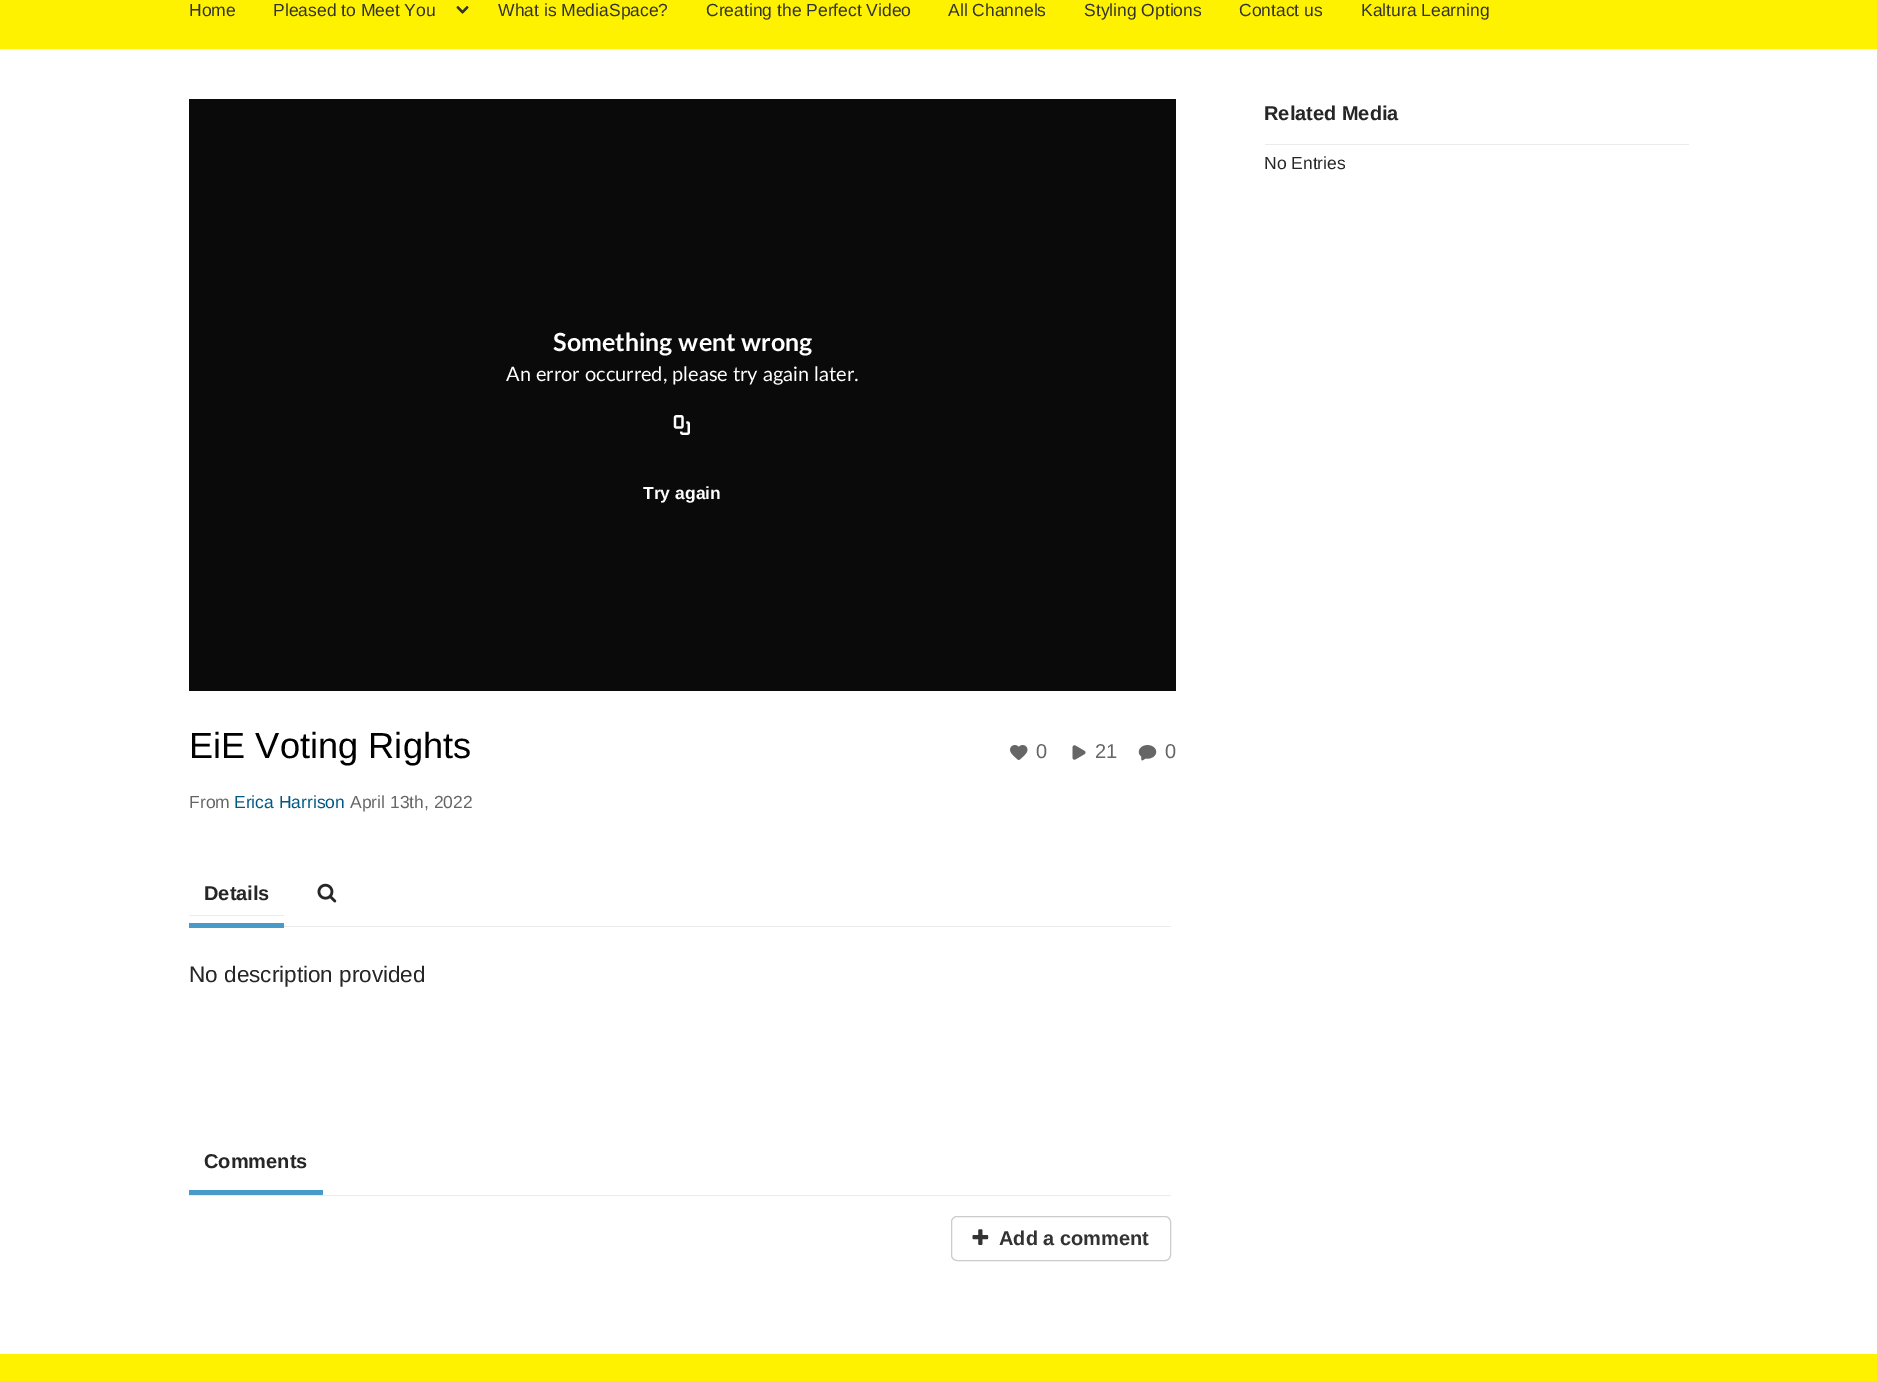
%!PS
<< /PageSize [1877 1381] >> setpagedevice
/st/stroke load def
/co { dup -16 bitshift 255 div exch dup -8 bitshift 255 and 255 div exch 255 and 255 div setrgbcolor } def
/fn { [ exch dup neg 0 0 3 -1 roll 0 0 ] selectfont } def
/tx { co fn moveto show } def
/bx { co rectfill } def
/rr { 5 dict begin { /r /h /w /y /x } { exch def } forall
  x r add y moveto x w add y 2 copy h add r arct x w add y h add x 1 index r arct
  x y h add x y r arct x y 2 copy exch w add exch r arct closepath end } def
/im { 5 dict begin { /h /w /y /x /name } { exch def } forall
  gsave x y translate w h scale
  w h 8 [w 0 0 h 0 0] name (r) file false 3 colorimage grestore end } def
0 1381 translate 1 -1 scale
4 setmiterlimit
0 0 1877 1381 16#FFFFFF bx
0 0 1877 49 16#FFF200 bx
(media/1.raw) 456 6 13 8 im
1265 144 424 1 16#EBEBEB bx
189 99 987 592 16#0A0A0A bx
(media/2.raw) 673 415 17 20 im
(media/3.raw) 1010 745 18 15 im
(media/4.raw) 1072 745 14 15 im
(media/5.raw) 1138 745 19 16 im
284 926 887 1 16#EBEBEB bx
189 915 95 1 16#EBEBEB bx
189 923 95 5 16#489BC9 bx
(media/6.raw) 317 883 20 20 im
189 1195 982 1 16#EBEBEB bx
189 1190 134 5 16#489BC9 bx
16#CCCCCC co
951.5 1216.5 219 44 5.5 rr st
(media/7.raw) 972 1229 17 16 im
0 1354 1877 27 16#FFF200 bx
(Home) 189 16 /LiberationSans-Regular 17.5 16#333333 tx
(Pleased to Meet You) 273 16 /LiberationSans-Regular 17.5 16#333333 tx
(What is MediaSpace?) 498 16 /LiberationSans-Regular 17.5 16#333333 tx
(Creating the Perfect Video) 706 16 /LiberationSans-Regular 17.5 16#333333 tx
(All Channels) 948 16 /LiberationSans-Regular 17.5 16#333333 tx
(Styling Options) 1084 16 /LiberationSans-Regular 17.5 16#333333 tx
(Contact us) 1239 16 /LiberationSans-Regular 17.5 16#333333 tx
(Kaltura Learning) 1361 16 /LiberationSans-Regular 17.5 16#333333 tx
(Related Media) 1264 120 /LiberationSans-Bold 20 16#262626 tx
(No Entries) 1264 169 /LiberationSans-Regular 17.5 16#262626 tx
(Something went wrong) 553 351 /Lato-Bold 25 16#FFFFFF tx
(An error occurred, please try again later.) 506 381 /Lato-Regular 20 16#FFFFFF tx
(Try again) 643 499 /LiberationSans-Bold 17.5 16#FFFFFF tx
(EiE Voting Rights) 189 758 /LiberationSans-Regular 36.25 16#000000 tx
(From) 189 808 /LiberationSans-Regular 17.5 16#666666 tx
(Erica Harrison) 234 808 /LiberationSans-Regular 17.5 16#005885 tx
(April 13th, 2022) 350 808 /LiberationSans-Regular 17.5 16#666666 tx
(0) 1036 758 /LiberationSans-Regular 20 16#666666 tx
(21) 1095 758 /LiberationSans-Regular 20 16#666666 tx
(0) 1165 758 /LiberationSans-Regular 20 16#666666 tx
(Details) 204 900 /LiberationSans-Bold 20 16#262626 tx
(No description provided) 189 982 /LiberationSans-Regular 22.5 16#262626 tx
(Comments) 204 1168 /LiberationSans-Bold 20 16#262626 tx
(Add a comment) 999 1245 /LiberationSans-Bold 20 16#333333 tx
showpage
